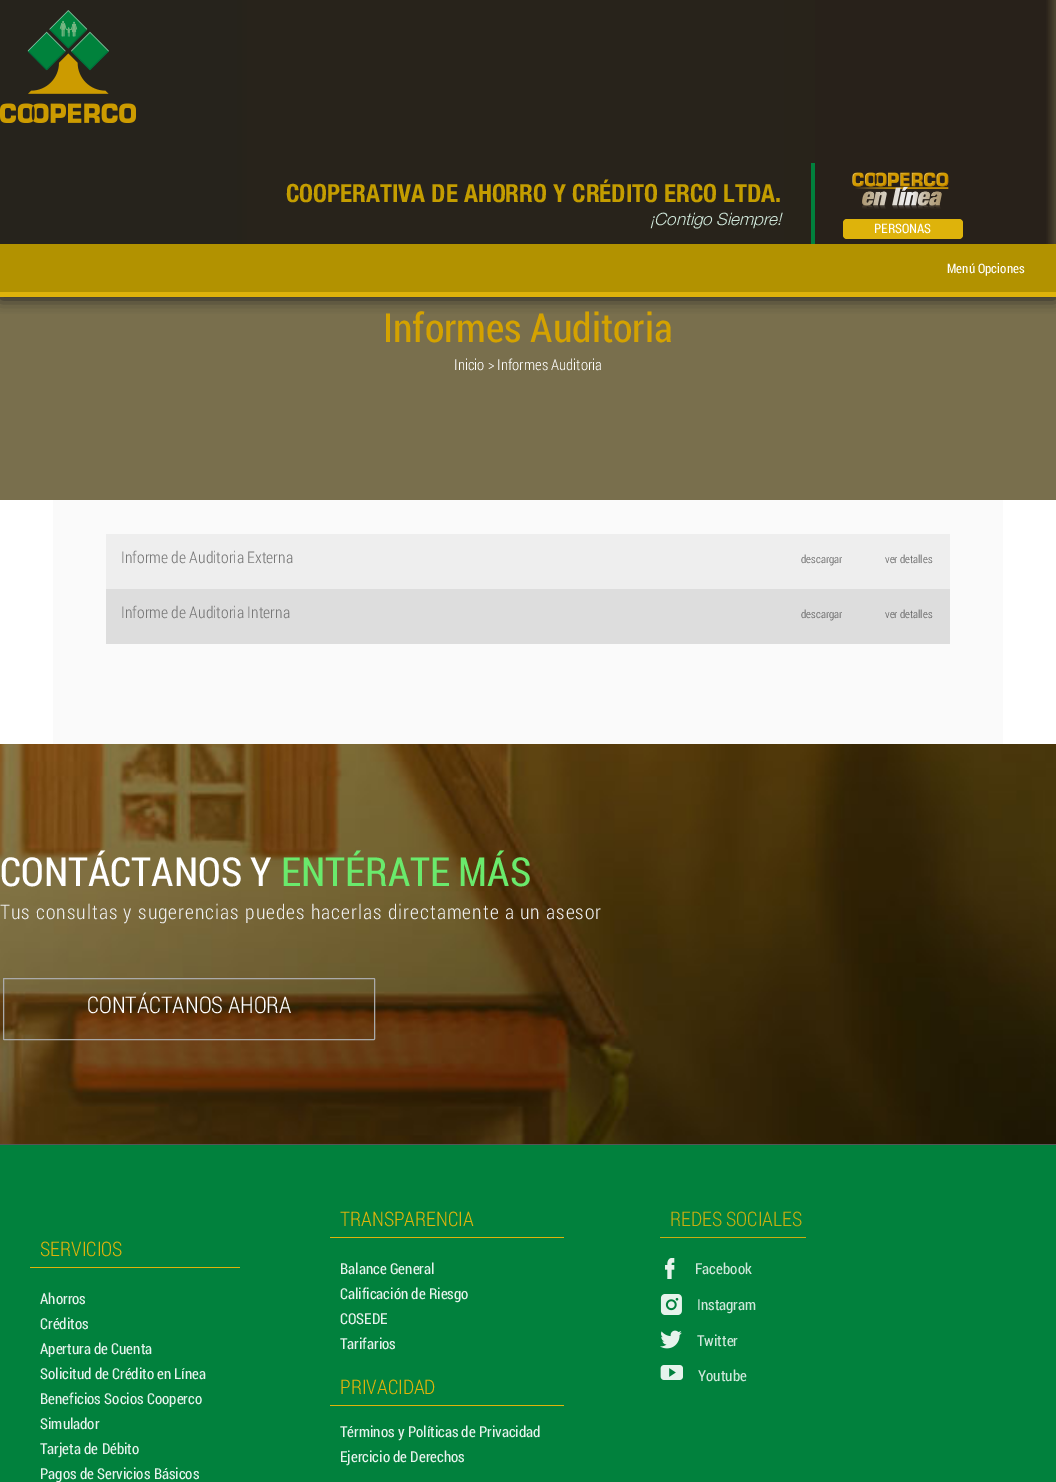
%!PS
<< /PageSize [1056 1482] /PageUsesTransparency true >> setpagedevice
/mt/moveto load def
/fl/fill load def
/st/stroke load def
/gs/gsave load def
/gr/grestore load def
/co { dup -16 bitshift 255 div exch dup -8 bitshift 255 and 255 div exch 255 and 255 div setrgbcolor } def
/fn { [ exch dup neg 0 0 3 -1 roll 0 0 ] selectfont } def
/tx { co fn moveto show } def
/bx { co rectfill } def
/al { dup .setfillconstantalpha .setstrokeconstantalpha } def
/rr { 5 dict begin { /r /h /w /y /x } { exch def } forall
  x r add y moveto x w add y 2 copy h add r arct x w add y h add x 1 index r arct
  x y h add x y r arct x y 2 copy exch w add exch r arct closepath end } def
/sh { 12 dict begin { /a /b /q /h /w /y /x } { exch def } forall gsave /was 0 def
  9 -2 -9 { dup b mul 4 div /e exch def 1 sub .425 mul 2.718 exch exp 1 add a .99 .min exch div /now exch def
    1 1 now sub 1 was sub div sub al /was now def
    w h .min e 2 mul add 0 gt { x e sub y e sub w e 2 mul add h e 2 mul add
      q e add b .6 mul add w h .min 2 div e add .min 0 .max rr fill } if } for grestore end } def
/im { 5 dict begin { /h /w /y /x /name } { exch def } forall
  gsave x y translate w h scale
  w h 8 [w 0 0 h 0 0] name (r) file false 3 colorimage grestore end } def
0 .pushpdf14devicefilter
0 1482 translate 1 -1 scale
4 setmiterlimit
0 0 1056 1482 16#FFFFFF bx
0 0 1056 500 16#796F4D bx
gs
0 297 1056 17 rectclip
16#222222 co
0 2 1056 297 0 7.5 1 sh
gr
(media/1.raw) 0 0 1056 244 im
(media/2.raw) 0 10 136 113 im
811 163 4 81 16#01813D bx
(media/3.raw) 852 172 97 37 im
16#DEB30B co
843 219 120 20 4 rr fl
0 244 1056 48 16#B29200 bx
0 292 1056 5 16#DEB30B bx
53 500 950 244 16#FAFAFA bx
106 534 844 55 16#EEEEEE bx
106 589 844 55 16#DDDDDD bx
(media/4.raw) 0 744 1056 400 im
16#AAAAAA co
3.5 978.5 371 61 .5 rr st
0 1145 1056 337 16#01813D bx
0 1144 1056 1 16#555555 bx
30 1267 210 1 16#DEB30B bx
330 1237 234 1 16#DEB30B bx
330 1405 234 1 16#DEB30B bx
660 1237 146 1 16#C8AE10 bx
(media/5.raw) 665 1258 10 21 im
(media/6.raw) 660 1294 22 21 im
(media/7.raw) 660 1330 22 19 im
(media/8.raw) 660 1365 23 15 im
(COOPERATIVA DE AHORRO Y CRÉDITO ERCO LTDA.) 286 202 /HelveticaNeue-Bold 25 16#C49D00 tx
(¡Contigo Siempre!) 650 225 /HelveticaNeue-LightItalic 17 16#CFE7DA tx
(PERSONAS) 874 233 /RobotoCondensed-Regular 13 16#FFFFFF tx
(Menú Opciones) 947 273 /RobotoCondensed-Regular 13 16#FFFFFF tx
(Informes Auditoria) 383 342 /RobotoCondensed-Regular 40 16#D4A200 tx
(Inicio > Informes Auditoria) 454 370 /RobotoCondensed-Light 15 16#FFFFFF tx
(Informe de Auditoria Externa) 121 563 /RobotoCondensed-Light 16 16#777777 tx
(descargar) 801 563 /RobotoCondensed-Light 11 16#555555 tx
(ver detalles) 885 563 /RobotoCondensed-Light 11 16#555555 tx
(Informe de Auditoria Interna) 121 618 /RobotoCondensed-Light 16 16#777777 tx
(descargar) 801 618 /RobotoCondensed-Light 11 16#555555 tx
(ver detalles) 885 618 /RobotoCondensed-Light 11 16#555555 tx
(CONTÁCTANOS Y) 0 886 /RobotoCondensed-Regular 40 16#FFFFFF tx
(ENTÉRATE MÁS) 281 886 /RobotoCondensed-Regular 40 16#6AEA6C tx
/RobotoCondensed-Light 20 fn
16#EEEEEE co
0 919 mt 1 0 (Tus consultas y sugerencias puedes hacerlas directamente a un asesor) ashow
(CONTÁCTANOS AHORA) 87 1013 /RobotoCondensed-Light 23 16#FFFFFF tx
(SERVICIOS) 40 1256 /RobotoCondensed-Light 20 16#DEB30B tx
(Ahorros) 40 1304 /RobotoCondensed-Regular 15 16#E6F2EC tx
(Créditos) 40 1329 /RobotoCondensed-Regular 15 16#E6F2EC tx
(Apertura de Cuenta) 40 1354 /RobotoCondensed-Regular 15 16#E6F2EC tx
(Solicitud de Crédito en Línea) 40 1379 /RobotoCondensed-Regular 15 16#E6F2EC tx
(Beneficios Socios Cooperco) 40 1404 /RobotoCondensed-Regular 15 16#E6F2EC tx
(Simulador) 40 1429 /RobotoCondensed-Regular 15 16#E6F2EC tx
(Tarjeta de Débito) 40 1454 /RobotoCondensed-Regular 15 16#E6F2EC tx
(Pagos de Servicios Básicos) 40 1479 /RobotoCondensed-Regular 15 16#E6F2EC tx
(TRANSPARENCIA) 340 1226 /RobotoCondensed-Light 20 16#DEB30B tx
(Balance General) 340 1274 /RobotoCondensed-Regular 15 16#E6F2EC tx
(Calificación de Riesgo) 340 1299 /RobotoCondensed-Regular 15 16#E6F2EC tx
(COSEDE) 340 1324 /RobotoCondensed-Regular 15 16#E6F2EC tx
(Tarifarios) 340 1349 /RobotoCondensed-Regular 15 16#E6F2EC tx
(PRIVACIDAD) 340 1394 /RobotoCondensed-Light 20 16#DEB30B tx
(Términos y Políticas de Privacidad) 340 1437 /RobotoCondensed-Regular 15 16#E6F2EC tx
(Ejercicio de Derechos) 340 1462 /RobotoCondensed-Regular 15 16#E6F2EC tx
(REDES SOCIALES) 670 1226 /RobotoCondensed-Light 20 16#C8AE10 tx
(Facebook) 695 1274 /RobotoCondensed-Regular 15 16#CFE7DA tx
(Instagram) 697 1310 /RobotoCondensed-Regular 15 16#CFE7DA tx
(Twitter) 697 1346 /RobotoCondensed-Regular 15 16#CFE7DA tx
(Youtube) 698 1381 /RobotoCondensed-Regular 15 16#CFE7DA tx
.poppdf14devicefilter showpage
